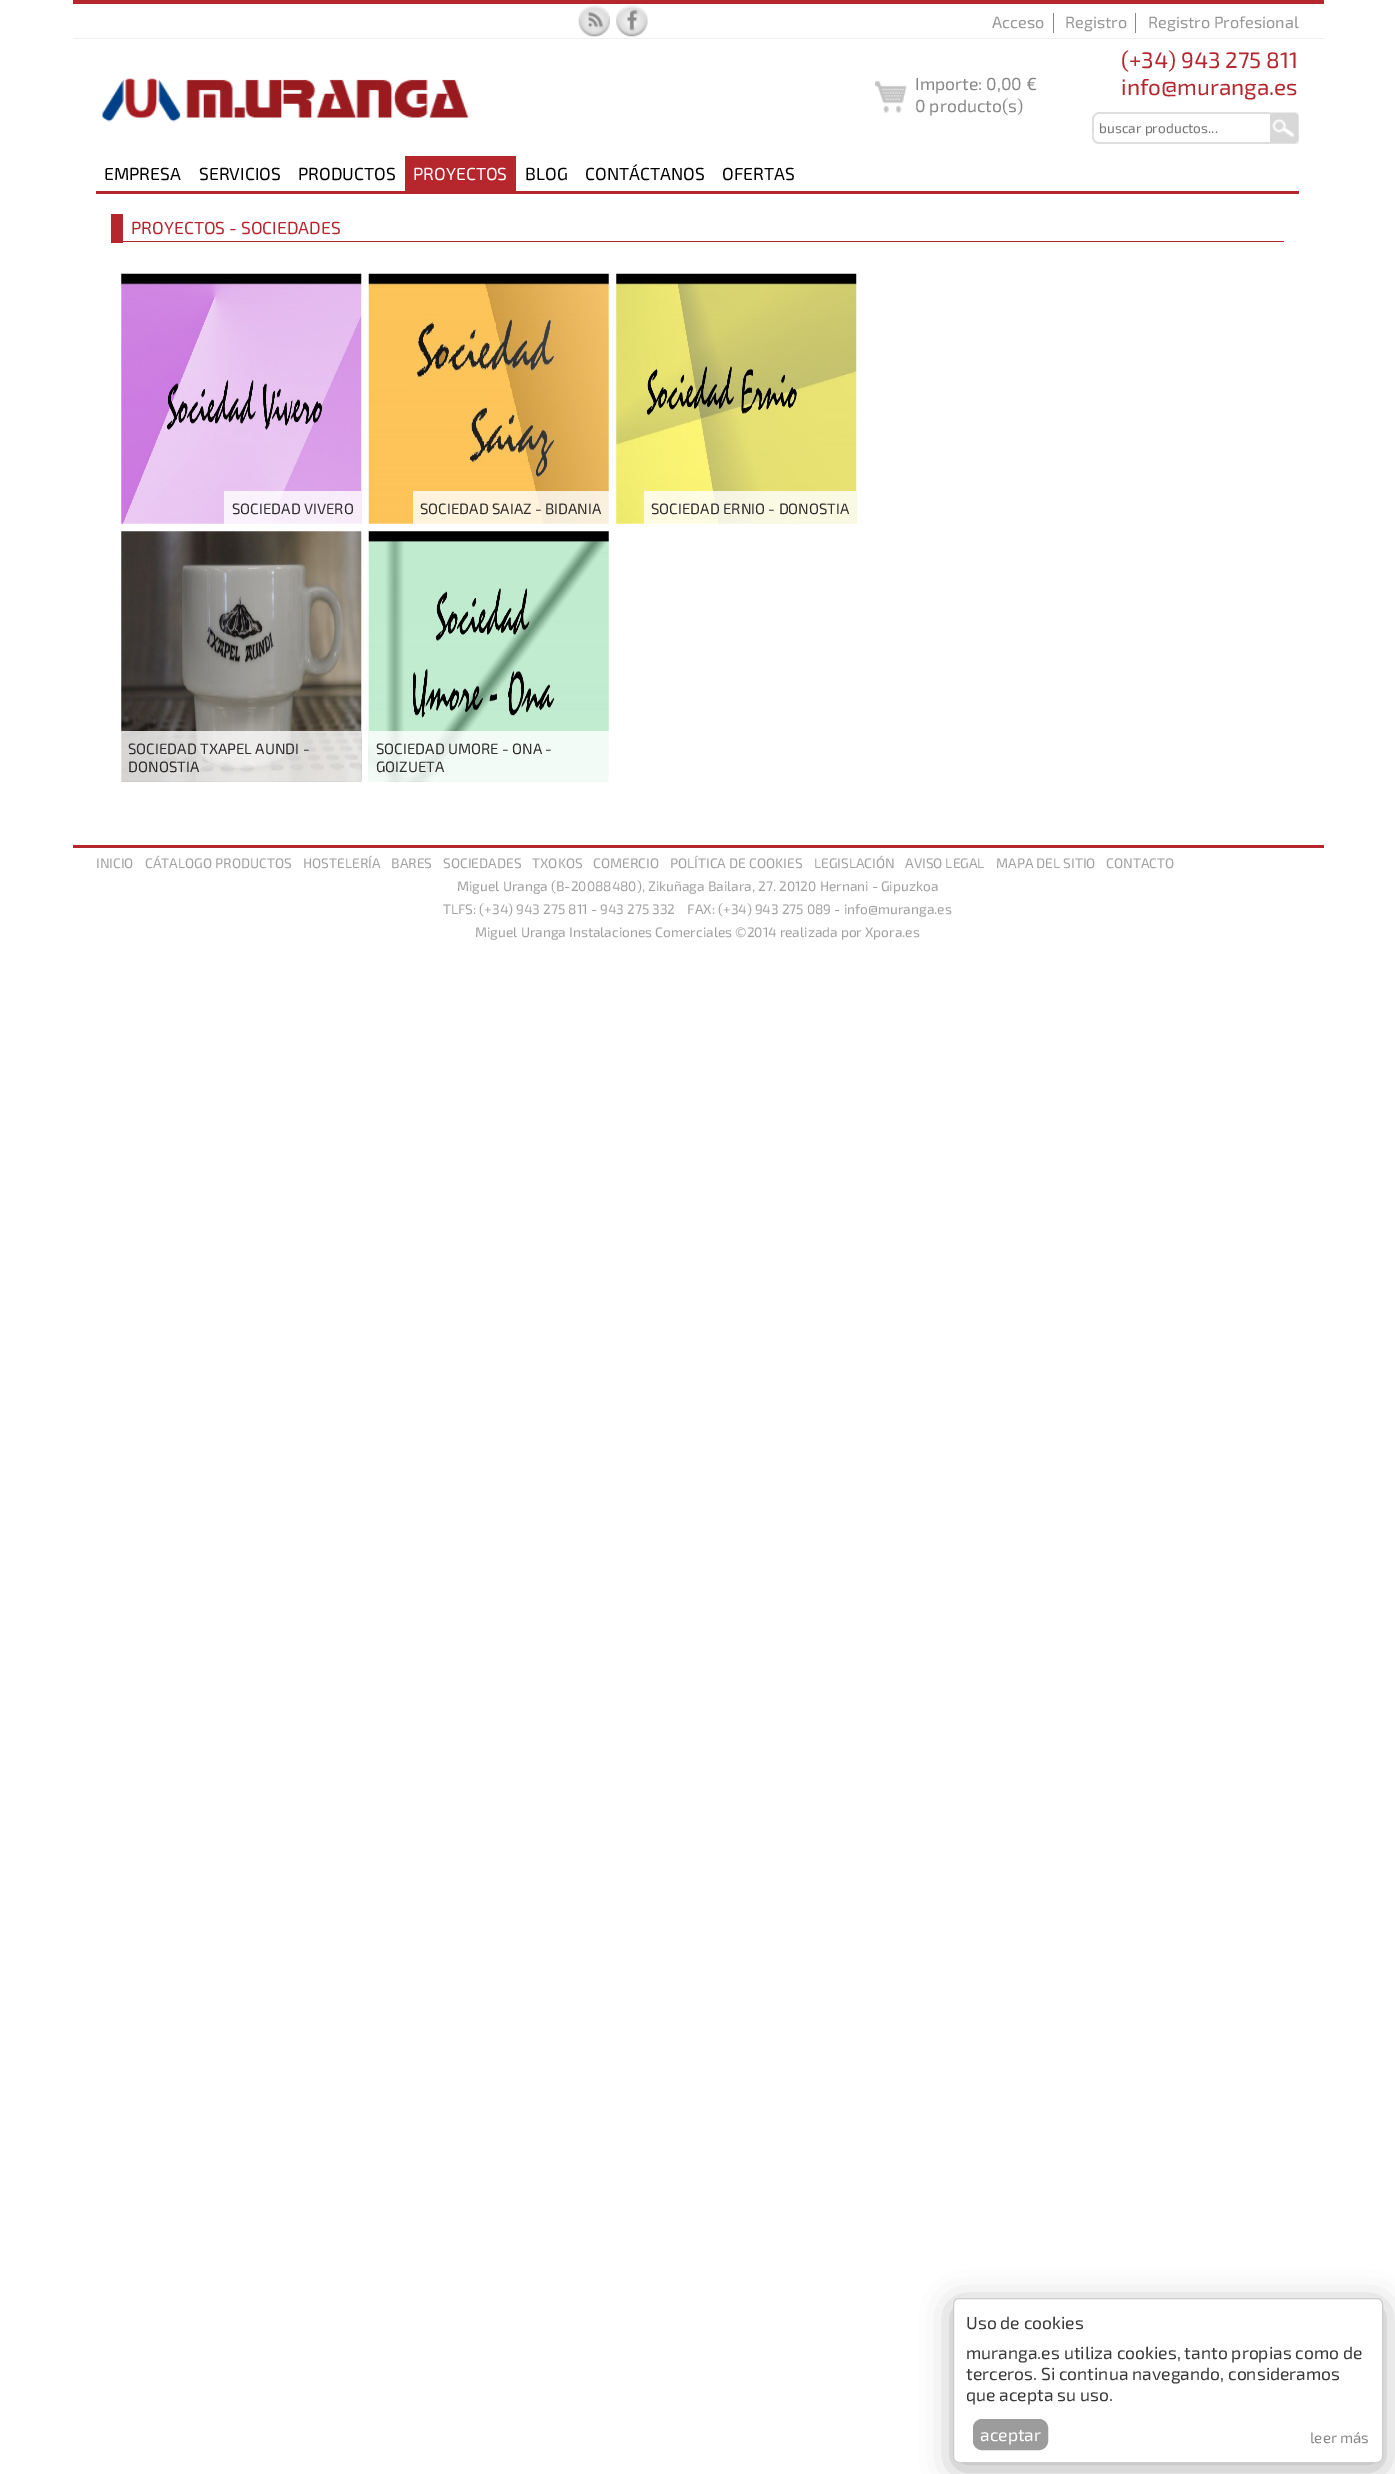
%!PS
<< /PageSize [1395 2474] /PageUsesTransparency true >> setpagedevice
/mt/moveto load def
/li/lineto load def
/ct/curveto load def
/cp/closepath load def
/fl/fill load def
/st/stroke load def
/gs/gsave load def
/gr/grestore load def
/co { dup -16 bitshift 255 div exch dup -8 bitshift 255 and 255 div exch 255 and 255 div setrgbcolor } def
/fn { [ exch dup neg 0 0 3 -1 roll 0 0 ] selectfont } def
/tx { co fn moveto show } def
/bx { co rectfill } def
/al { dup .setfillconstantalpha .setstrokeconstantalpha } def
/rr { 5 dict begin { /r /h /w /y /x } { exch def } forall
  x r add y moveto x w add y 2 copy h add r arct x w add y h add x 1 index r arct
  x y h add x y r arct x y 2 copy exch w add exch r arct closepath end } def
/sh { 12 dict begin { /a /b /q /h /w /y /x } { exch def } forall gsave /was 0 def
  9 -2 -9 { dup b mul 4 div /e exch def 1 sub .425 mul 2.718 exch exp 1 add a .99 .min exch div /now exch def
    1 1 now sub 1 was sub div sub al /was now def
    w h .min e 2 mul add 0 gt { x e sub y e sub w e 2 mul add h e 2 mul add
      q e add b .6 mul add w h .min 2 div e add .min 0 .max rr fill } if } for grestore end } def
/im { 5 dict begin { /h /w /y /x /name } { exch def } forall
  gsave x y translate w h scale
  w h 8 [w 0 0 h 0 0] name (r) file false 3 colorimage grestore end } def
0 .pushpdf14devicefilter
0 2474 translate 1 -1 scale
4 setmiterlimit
0 0 1395 2474 16#FFFFFF bx
73 0 1251 4 16#B6262D bx
(media/1.raw) 578 5 32 32 im
(media/2.raw) 616 5 32 32 im
1053 13 1 20 16#888888 bx
1135 13 1 20 16#888888 bx
(media/3.raw) 102 78 367 44 im
(media/4.raw) 875 81 32 32 im
16#DEDEDE co
1099 112 mt 1270 112 li 1270 144 li 1099 144 li 1096 144 1092 141 1092 137 ct 1092 119 li 1092 116 1096 112 1099 112 ct cp 1099 114 mt 1270 114 li 1270 142 li 1098 142 li 1092 141 1094 133 1094 128 ct 1094 124 1092 114 1099 114 ct cp eofill
(media/5.raw) 1270 112 29 32 im
96 191 1203 3 16#B6262D bx
405 156 111 35 16#B6262D bx
73 38 1251 1 16#EFEFEF bx
123 241 1161 1 16#B6262D bx
111 214 12 29 16#B6262D bx
(media/6.raw) 121 273 241 251 im
0.8 al
224 491 137 33 16#FFFFFF bx
1 al
(media/7.raw) 368 273 241 251 im
0.8 al
413 491 196 33 16#FFFFFF bx
1 al
(media/8.raw) 616 273 241 251 im
0.8 al
644 491 212 33 16#FFFFFF bx
1 al
(media/9.raw) 121 531 241 251 im
0.8 al
121 731 240 50 16#FFFFFF bx
1 al
(media/10.raw) 368 531 241 251 im
0.8 al
369 731 240 50 16#FFFFFF bx
1 al
73 845 1251 3 16#B6262D bx
16#000000 co
953 2304 430 165 6 15.5 .3 sh
16#FFFFFF co
953.5 2298.5 429 164 5.5 rr gs fl gr
16#CCCCCC co
st
16#9C9C9C co
973.5 2419.5 74 30 8.5 rr gs fl gr
st
(Acceso) 992 28 /Exo2-Regular 16.25 16#979797 tx
(Registro) 1065 28 /Exo2-Regular 16.25 16#979797 tx
(Registro Profesional) 1148 28 /Exo2-Regular 16.25 16#979797 tx
(Importe: 0,00 €) 915 90 /Exo2-Regular 17.5 16#888888 tx
(0 producto\(s\)) 915 112 /Exo2-Regular 17.5 16#888888 tx
(\(+34\) 943 275 811) 1121 68 /Exo2-Regular 22.5 16#B6262D tx
(info@muranga.es) 1121 95 /Exo2-Regular 22.5 16#B6262D tx
(buscar productos...) 1099 133 /Exo2-Regular 13.75 16#757575 tx
(EMPRESA) 104 180 /Exo2-Regular 17.5 16#000000 tx
(SERVICIOS) 199 180 /Exo2-Regular 17.5 16#000000 tx
(PRODUCTOS) 298 180 /Exo2-Regular 17.5 16#000000 tx
(PROYECTOS) 413 180 /Exo2-Regular 17.5 16#FFFFFF tx
(BLOG) 525 180 /Exo2-Regular 17.5 16#000000 tx
(CONTÁCTANOS) 585 180 /Exo2-Regular 17.5 16#000000 tx
(OFERTAS) 722 180 /Exo2-Regular 17.5 16#000000 tx
(PROYECTOS - SOCIEDADES) 131 234 /Exo2-Regular 17.5 16#B6262D tx
(SOCIEDAD VIVERO) 232 514 /Exo2-Regular 15 16#323032 tx
(SOCIEDAD SAIAZ - BIDANIA) 420 514 /Exo2-Regular 15 16#32302C tx
(SOCIEDAD ERNIO - DONOSTIA) 651 514 /Exo2-Regular 15 16#323032 tx
(SOCIEDAD TXAPEL AUNDI -) 128 754 /Exo2-Regular 15 16#323032 tx
(DONOSTIA) 128 772 /Exo2-Regular 15 16#2B2B2B tx
(SOCIEDAD UMORE - ONA -) 376 754 /Exo2-Regular 15 16#323032 tx
(GOIZUETA) 376 772 /Exo2-Regular 15 16#323032 tx
(INICIO) 96 868 /Exo2-Regular 13.75 16#A1A1A1 tx
(CÁTALOGO PRODUCTOS) 145 868 /Exo2-Regular 13.75 16#A1A1A1 tx
(HOSTELERÍA) 303 868 /Exo2-Regular 13.75 16#A1A1A1 tx
(BARES) 391 868 /Exo2-Regular 13.75 16#A1A1A1 tx
(SOCIEDADES) 443 868 /Exo2-Regular 13.75 16#A1A1A1 tx
(TXOKOS) 532 868 /Exo2-Regular 13.75 16#A1A1A1 tx
(COMERCIO) 593 868 /Exo2-Regular 13.75 16#A1A1A1 tx
(POLÍTICA DE COOKIES) 670 868 /Exo2-Regular 13.75 16#A1A1A1 tx
(LEGISLACIÓN) 814 868 /Exo2-Regular 13.75 16#A1A1A1 tx
(AVISO LEGAL) 905 868 /Exo2-Regular 13.75 16#A1A1A1 tx
(MAPA DEL SITIO) 996 868 /Exo2-Regular 13.75 16#A1A1A1 tx
(CONTACTO) 1106 868 /Exo2-Regular 13.75 16#A1A1A1 tx
(Miguel Uranga \(B-20088480\), Zikuñaga Bailara, 27. 20120 Hernani - Gipuzkoa) 457 891 /Exo2-Regular 13.75 16#A1A1A1 tx
(TLFS: \(+34\) 943 275 811 - 943 275 332    FAX: \(+34\) 943 275 089 - info@muranga.es) 443 914 /Exo2-Regular 13.75 16#A1A1A1 tx
(Miguel Uranga Instalaciones Comerciales ©2014 realizada por Xpora.es) 475 937 /Exo2-Regular 13.75 16#A1A1A1 tx
(Uso de cookies) 966 2329 /Exo2-Regular 17.5 16#3A3A3A tx
(muranga.es utiliza cookies, tanto propias como de) 966 2359 /Exo2-Regular 17.5 16#3A3A3A tx
(terceros. Si continua navegando, consideramos) 966 2380 /Exo2-Regular 17.5 16#3A3A3A tx
(que acepta su uso.) 966 2401 /Exo2-Regular 17.5 16#3A3A3A tx
(aceptar) 980 2441 /Exo2-Regular 17.5 16#FFFFFF tx
(leer más) 1310 2443 /Exo2-Regular 15 16#888888 tx
.poppdf14devicefilter showpage
